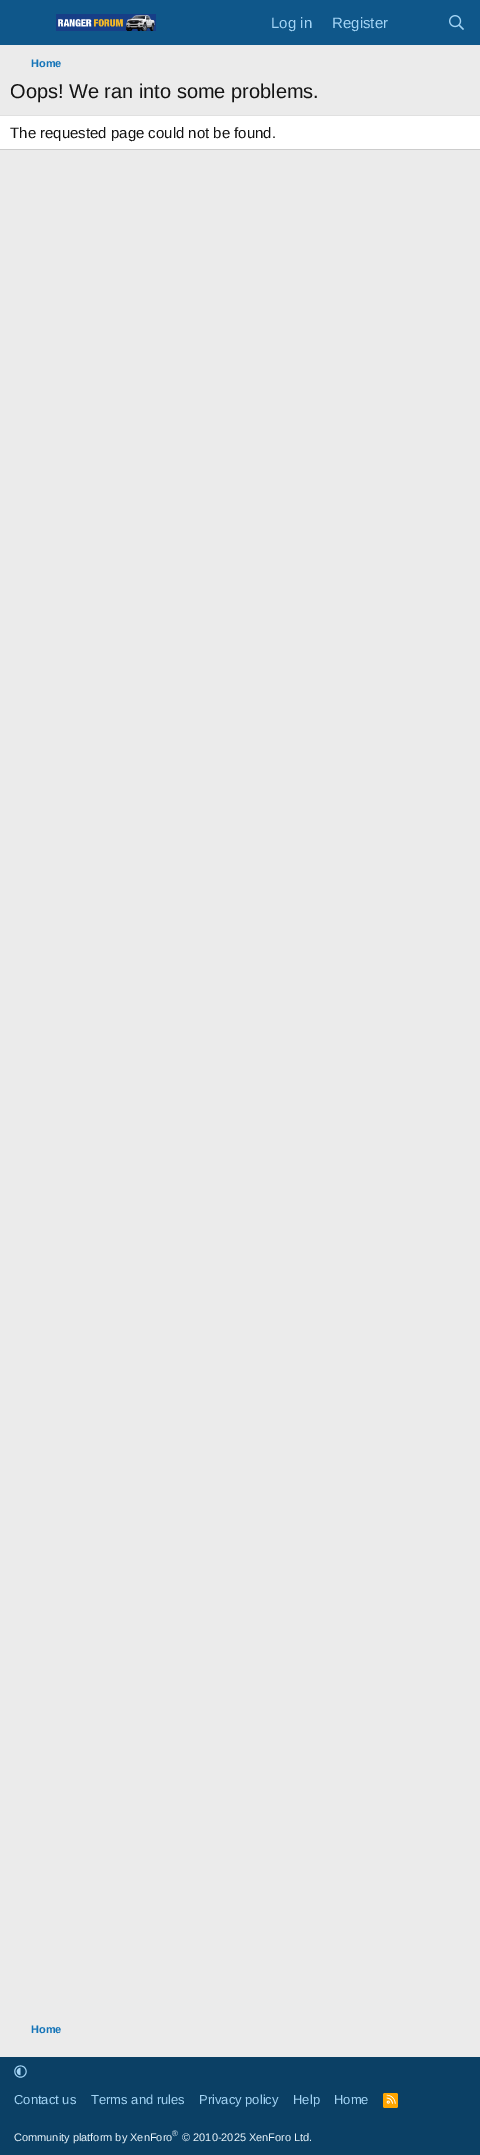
%!PS
<< /PageSize [480 2155] >> setpagedevice
/fl/fill load def
/co { dup -16 bitshift 255 div exch dup -8 bitshift 255 and 255 div exch 255 and 255 div setrgbcolor } def
/fn { [ exch dup neg 0 0 3 -1 roll 0 0 ] selectfont } def
/tx { co fn moveto show } def
/bx { co rectfill } def
/rr { 5 dict begin { /r /h /w /y /x } { exch def } forall
  x r add y moveto x w add y 2 copy h add r arct x w add y h add x 1 index r arct
  x y h add x y r arct x y 2 copy exch w add exch r arct closepath end } def
/im { 5 dict begin { /h /w /y /x /name } { exch def } forall
  gsave x y translate w h scale
  w h 8 [w 0 0 h 0 0] name (r) file false 3 colorimage grestore end } def
0 2155 translate 1 -1 scale
4 setmiterlimit
0 0 480 2155 16#EBEBEB bx
0 0 480 45 16#0F578A bx
(media/1.raw) 56 14 100 17 im
(media/2.raw) 449 15 15 15 im
0 116 480 33 16#FFFFFF bx
0 115 480 1 16#E0E0E0 bx
0 149 480 1 16#CCCCCC bx
0 2057 480 98 16#0B4065 bx
(media/3.raw) 14 2065 13 13 im
16#FFA500 co
383 2093 15 15 2 rr fl
(media/4.raw) 386 2094 10 10 im
(Log in) 271 28 /LiberationSans-Regular 15 16#A3D4F5 tx
(Register) 332 28 /LiberationSans-Regular 15 16#A3D4F5 tx
(Home) 31 67 /LiberationSans-Bold 11 16#1474B8 tx
(Oops! We ran into some problems.) 10 98 /LiberationSans-Regular 20 16#141414 tx
(The requested page could not be found.) 10 138 /LiberationSans-Regular 15 16#141414 tx
(Home) 31 2033 /LiberationSans-Bold 11 16#1474B8 tx
(Contact us) 14 2104 /LiberationSans-Regular 13 16#A3D4F5 tx
(Terms and rules) 91 2104 /LiberationSans-Regular 13 16#A3D4F5 tx
(Privacy policy) 199 2104 /LiberationSans-Regular 13 16#A3D4F5 tx
(Help) 293 2104 /LiberationSans-Regular 13 16#A3D4F5 tx
(Home) 334 2104 /LiberationSans-Regular 13 16#A3D4F5 tx
(Community platform by XenForo) 14 2141 /LiberationSans-Regular 11 16#E8F4FC tx
(®) 172 2136 /LiberationSans-Regular 8 16#E8F4FC tx
(© 2010-2025 XenForo Ltd.) 182 2141 /LiberationSans-Regular 11 16#E8F4FC tx
showpage
